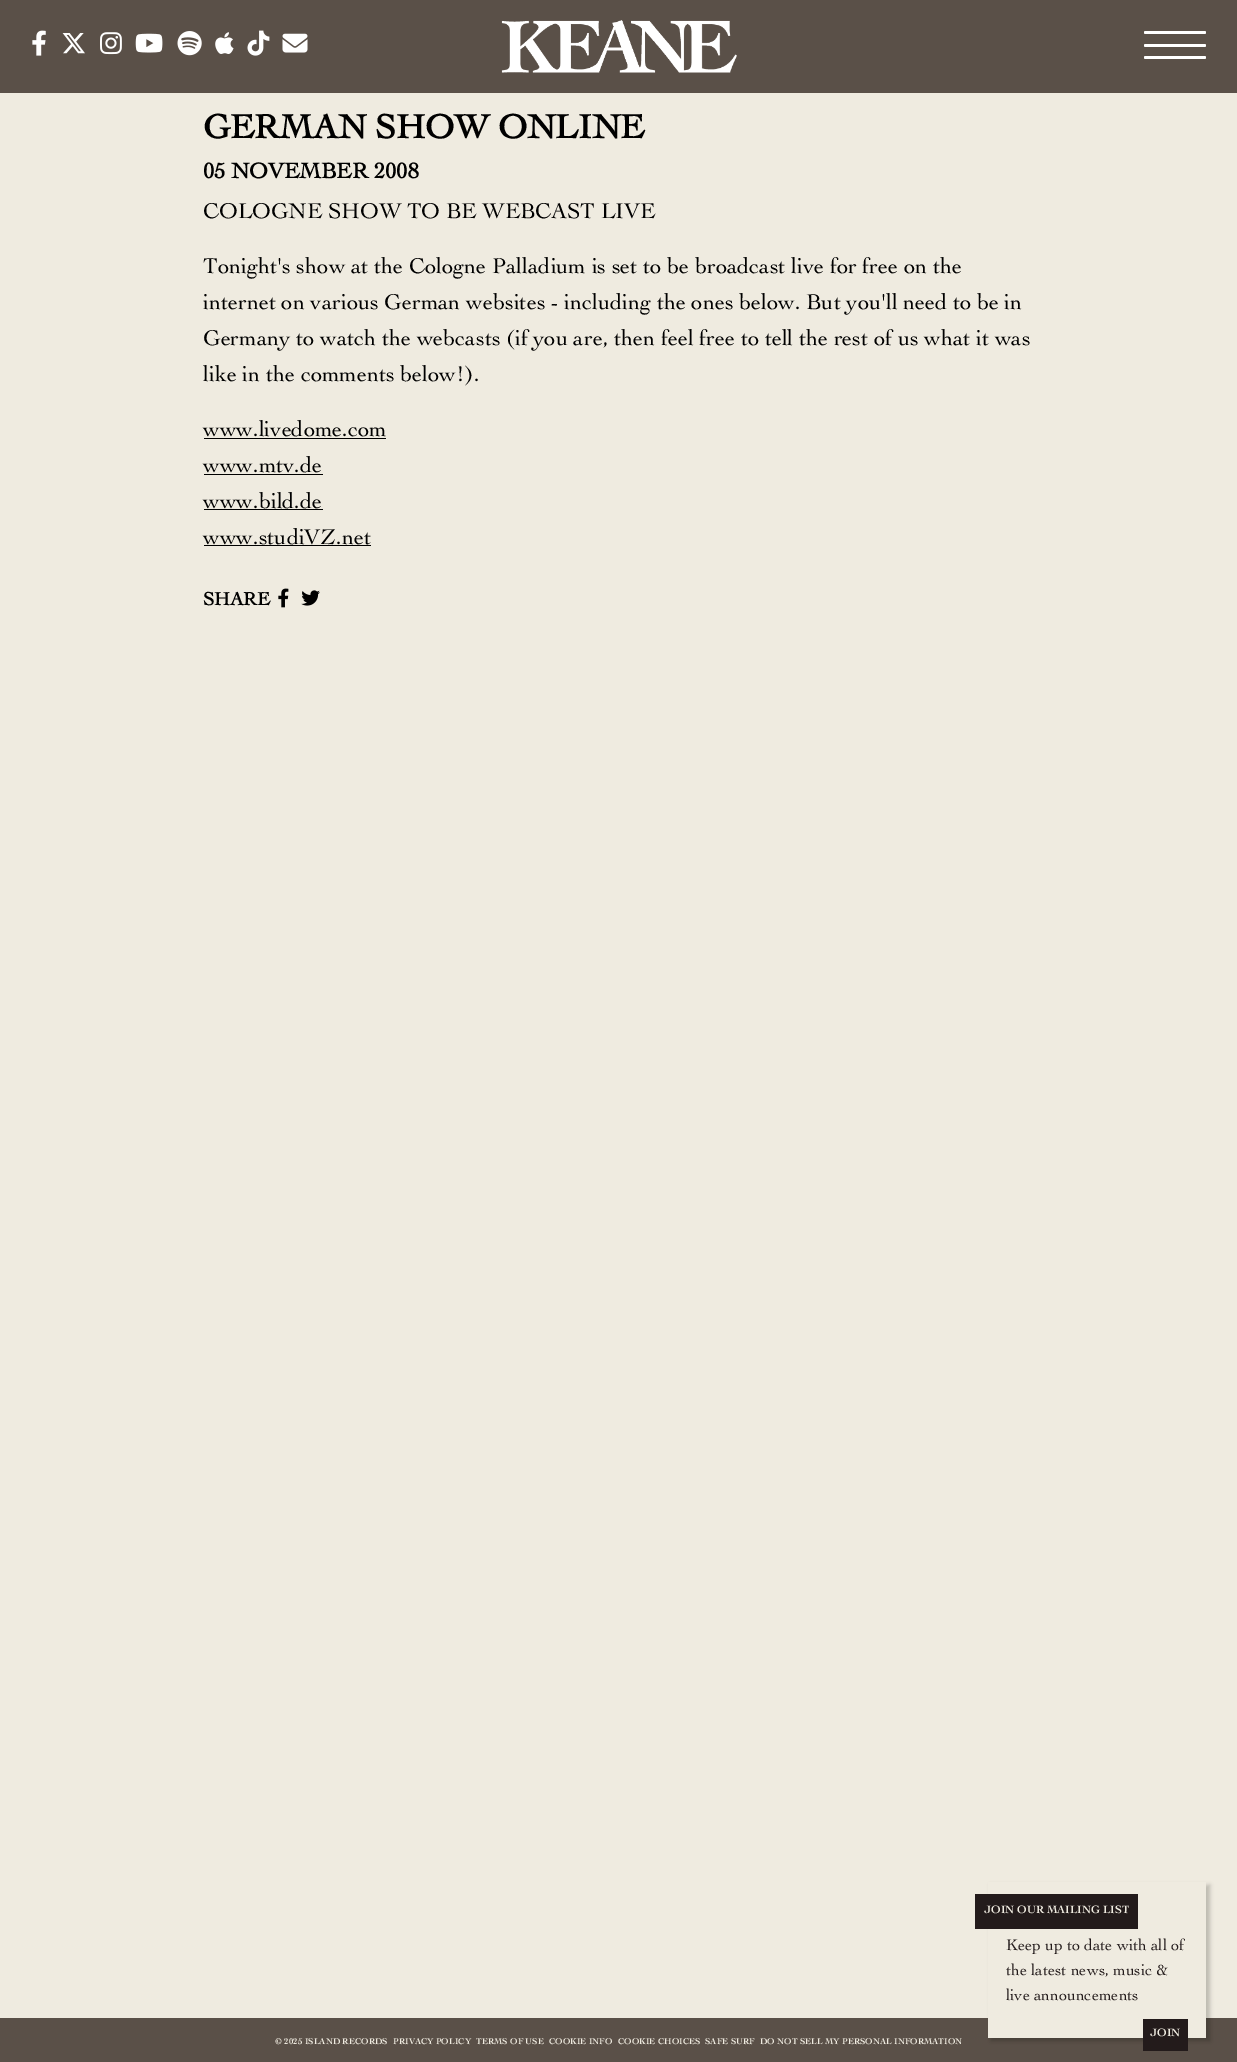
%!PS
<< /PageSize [1237 2062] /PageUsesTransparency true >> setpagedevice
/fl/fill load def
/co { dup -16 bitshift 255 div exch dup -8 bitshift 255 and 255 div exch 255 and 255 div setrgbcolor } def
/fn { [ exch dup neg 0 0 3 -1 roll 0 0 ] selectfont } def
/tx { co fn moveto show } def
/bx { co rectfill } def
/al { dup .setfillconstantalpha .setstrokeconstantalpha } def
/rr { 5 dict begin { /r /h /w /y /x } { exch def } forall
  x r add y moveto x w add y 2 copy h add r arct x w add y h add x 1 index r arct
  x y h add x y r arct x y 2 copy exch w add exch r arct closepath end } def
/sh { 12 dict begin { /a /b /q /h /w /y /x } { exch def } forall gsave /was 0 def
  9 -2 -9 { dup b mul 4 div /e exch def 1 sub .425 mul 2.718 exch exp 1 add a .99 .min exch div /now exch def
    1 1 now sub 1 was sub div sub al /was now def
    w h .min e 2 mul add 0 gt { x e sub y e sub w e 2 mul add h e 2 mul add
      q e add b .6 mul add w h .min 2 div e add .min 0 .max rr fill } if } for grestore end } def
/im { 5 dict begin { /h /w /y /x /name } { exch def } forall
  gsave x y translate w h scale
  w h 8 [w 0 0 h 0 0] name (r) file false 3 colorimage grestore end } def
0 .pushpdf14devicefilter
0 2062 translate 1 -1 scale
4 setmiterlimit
0 0 1237 2062 16#EFEBE0 bx
0 0 1237 93 16#5A5048 bx
16#FFFFFF co
1144 31 62 3 1.5 rr fl
1144 44 62 3 1.5 rr fl
1144 56 62 3 1.5 rr fl
(media/1.raw) 32 30 14 26 im
(media/2.raw) 62 33 23 21 im
(media/3.raw) 100 32 22 23 im
(media/4.raw) 135 33 28 20 im
(media/5.raw) 177 31 25 25 im
(media/6.raw) 215 32 19 22 im
(media/7.raw) 247 30 23 26 im
(media/8.raw) 282 33 26 20 im
(media/9.raw) 501 20 236 53 im
204 438 182 1 16#000000 bx
204 474 119 1 16#000000 bx
204 509 119 1 16#000000 bx
204 545 167 1 16#000000 bx
(media/10.raw) 278 588 11 20 im
(media/11.raw) 301 590 19 16 im
0 2018 1237 44 16#5A5048 bx
16#000000 co
991 1885 219 156 0 2 .2 sh
988 1882 218 156 16#EFEBE0 bx
975 1894 163 35 16#231B1B bx
1143 2019 45 32 16#231B1B bx
(GERMAN SHOW ONLINE) 203 138 /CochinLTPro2-Bold 35 16#000000 tx
(05 NOVEMBER 2008) 203 178 /CochinLTPro2-Bold 22.5 16#000000 tx
(COLOGNE SHOW TO BE WEBCAST LIVE) 203 218 /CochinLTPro-Regular 22.5 16#000000 tx
(Tonight's show at the Cologne Palladium is set to be broadcast live for free on the) 203 273 /CochinLTPro-Regular 22.5 16#000000 tx
(internet on various German websites - including the ones below. But you'll need to be in) 203 309 /CochinLTPro-Regular 22.5 16#000000 tx
(Germany to watch the webcasts \(if you are, then feel free to tell the rest of us what it was) 203 345 /CochinLTPro-Regular 22.5 16#000000 tx
(like in the comments below!\).) 203 381 /CochinLTPro-Regular 22.5 16#000000 tx
(www.livedome.com) 203 436 /CochinLTPro-Regular 22.5 16#000000 tx
(www.mtv.de) 203 472 /CochinLTPro-Regular 22.5 16#000000 tx
(www.bild.de) 203 508 /CochinLTPro-Regular 22.5 16#000000 tx
(www.studiVZ.net) 203 544 /CochinLTPro-Regular 22.5 16#000000 tx
(SHARE) 203 605 /CochinLTPro2-Bold 19 16#000000 tx
(© 2025 ISLAND RECORDS) 275 2044 /CochinLTPro-Bold 8.75 16#EFEBE0 tx
(PRIVACY POLICY) 393 2044 /CochinLTPro-Bold 8.75 16#EFEBE0 tx
(TERMS OF USE) 476 2044 /CochinLTPro-Bold 8.75 16#EFEBE0 tx
(COOKIE INFO) 549 2044 /CochinLTPro-Bold 8.75 16#EFEBE0 tx
(COOKIE CHOICES) 618 2044 /CochinLTPro-Bold 8.75 16#EFEBE0 tx
(SAFE SURF) 705 2044 /CochinLTPro-Bold 8.75 16#EFEBE0 tx
(DO NOT SELL MY PERSONAL INFORMATION) 760 2044 /CochinLTPro-Bold 8.75 16#EFEBE0 tx
(JOIN OUR MAILING LIST) 984 1913 /CochinLTPro-Bold 11.25 16#EFEBE0 tx
(Keep up to date with all of) 1006 1950 /CochinLTPro-Regular 16.25 16#231B1B tx
(the latest news, music &) 1006 1975 /CochinLTPro-Regular 16.25 16#231B1B tx
(live announcements) 1006 2000 /CochinLTPro-Regular 16.25 16#231B1B tx
(JOIN) 1150 2036 /CochinLTPro-Bold 11.25 16#EFEBE0 tx
.poppdf14devicefilter showpage
